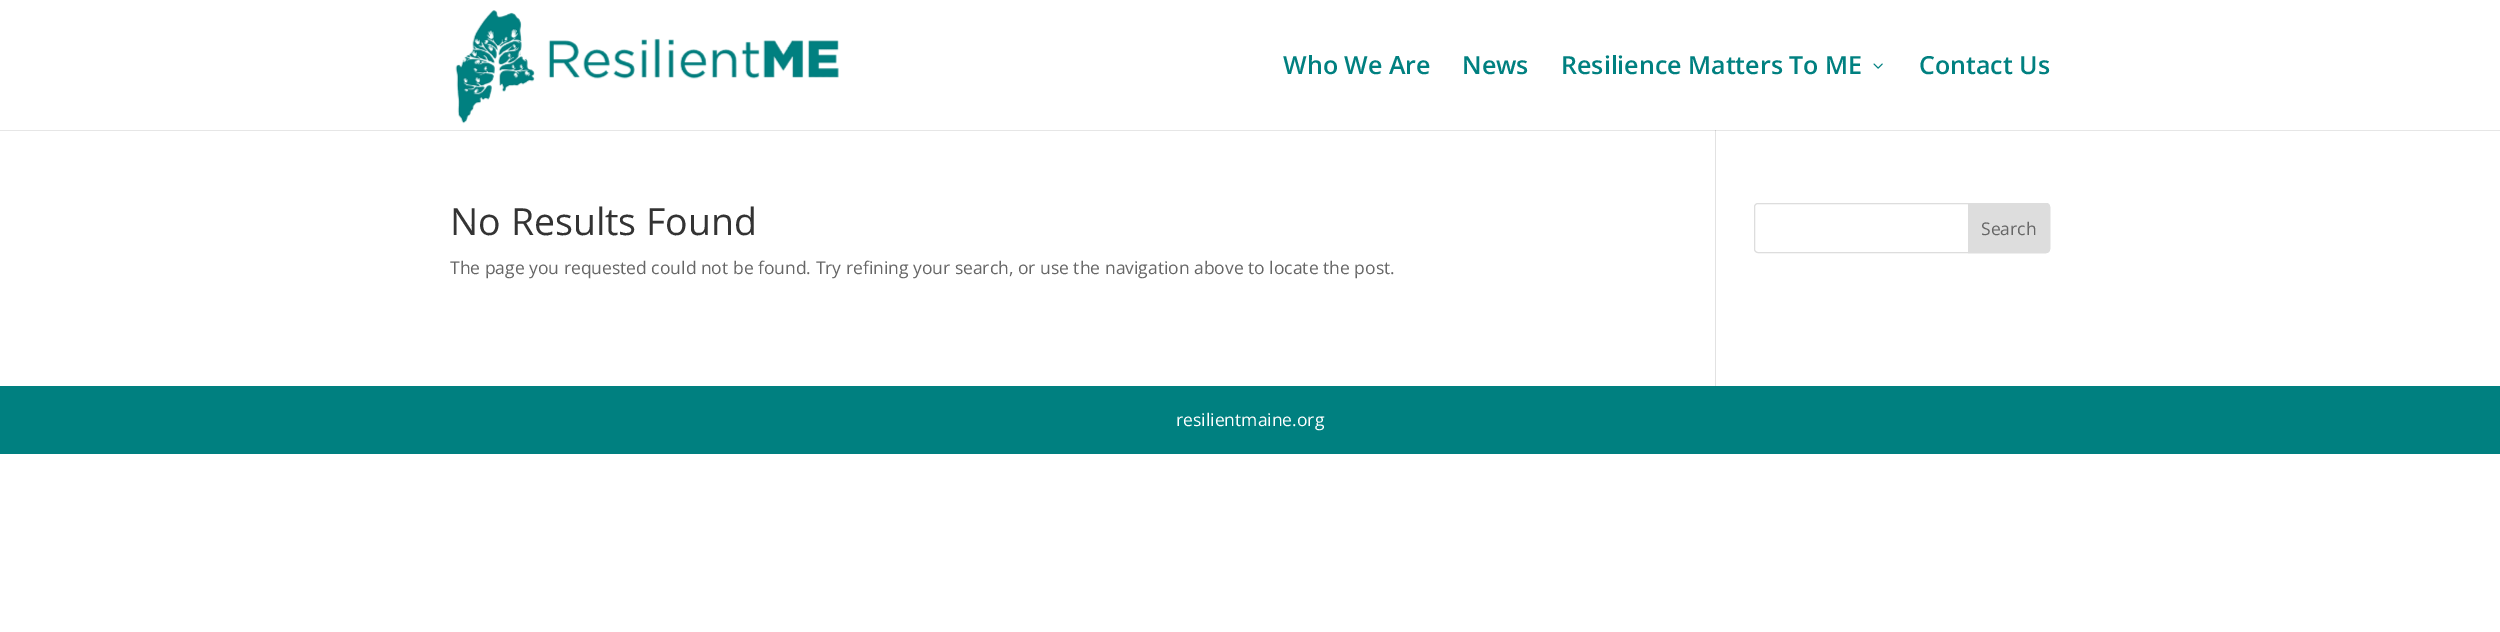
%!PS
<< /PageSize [2500 632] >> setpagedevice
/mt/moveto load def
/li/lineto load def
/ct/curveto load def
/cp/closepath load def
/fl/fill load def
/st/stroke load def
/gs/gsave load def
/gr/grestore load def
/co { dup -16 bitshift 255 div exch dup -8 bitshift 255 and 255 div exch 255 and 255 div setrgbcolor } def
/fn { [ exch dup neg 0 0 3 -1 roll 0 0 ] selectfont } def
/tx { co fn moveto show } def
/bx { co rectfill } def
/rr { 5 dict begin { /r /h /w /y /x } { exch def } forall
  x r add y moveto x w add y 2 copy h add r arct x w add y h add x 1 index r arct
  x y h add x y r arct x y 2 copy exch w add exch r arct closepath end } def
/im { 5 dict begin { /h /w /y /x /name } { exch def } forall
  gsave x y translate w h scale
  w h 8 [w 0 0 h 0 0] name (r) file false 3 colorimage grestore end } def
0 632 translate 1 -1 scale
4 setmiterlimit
0 0 2500 632 16#FFFFFF bx
0 130 2500 1 16#E6E6E6 bx
(media/1.raw) 455 10 384 114 im
(media/2.raw) 1873 63 10 6 im
1715 130 1 256 16#E2E2E2 bx
1715 130 1 1 16#CBCBCB bx
16#DDDDDD co
1754.5 203.5 295 49 3.5 rr st
1968.5 203.5 mt 2046 203.5 li 2048 203.5 2049.5 205 2049.5 207 ct 2049.5 249 li 2049.5 251 2048 252.5 2046 252.5 ct 1968.5 252.5 li cp gs fl gr
st
0 386 2500 68 16#008080 bx
(Who We Are) 1283 74 /OpenSans-SemiBold 25 16#008080 tx
(News) 1462 74 /OpenSans-SemiBold 25 16#008080 tx
(Resilience Matters To ME) 1561 74 /OpenSans-SemiBold 25 16#008080 tx
(Contact Us) 1919 74 /OpenSans-SemiBold 25 16#008080 tx
(No Results Found) 450 235 /OpenSans-Regular 37.5 16#333333 tx
(The page you requested could not be found. Try refining your search, or use the navigation above to locate the post.) 450 274 /OpenSans-Regular 17.5 16#666666 tx
(Search) 1981 235 /OpenSans-Regular 17.5 16#666666 tx
(resilientmaine.org) 1176 426 /OpenSans-Regular 17.5 16#FFFFFF tx
showpage
